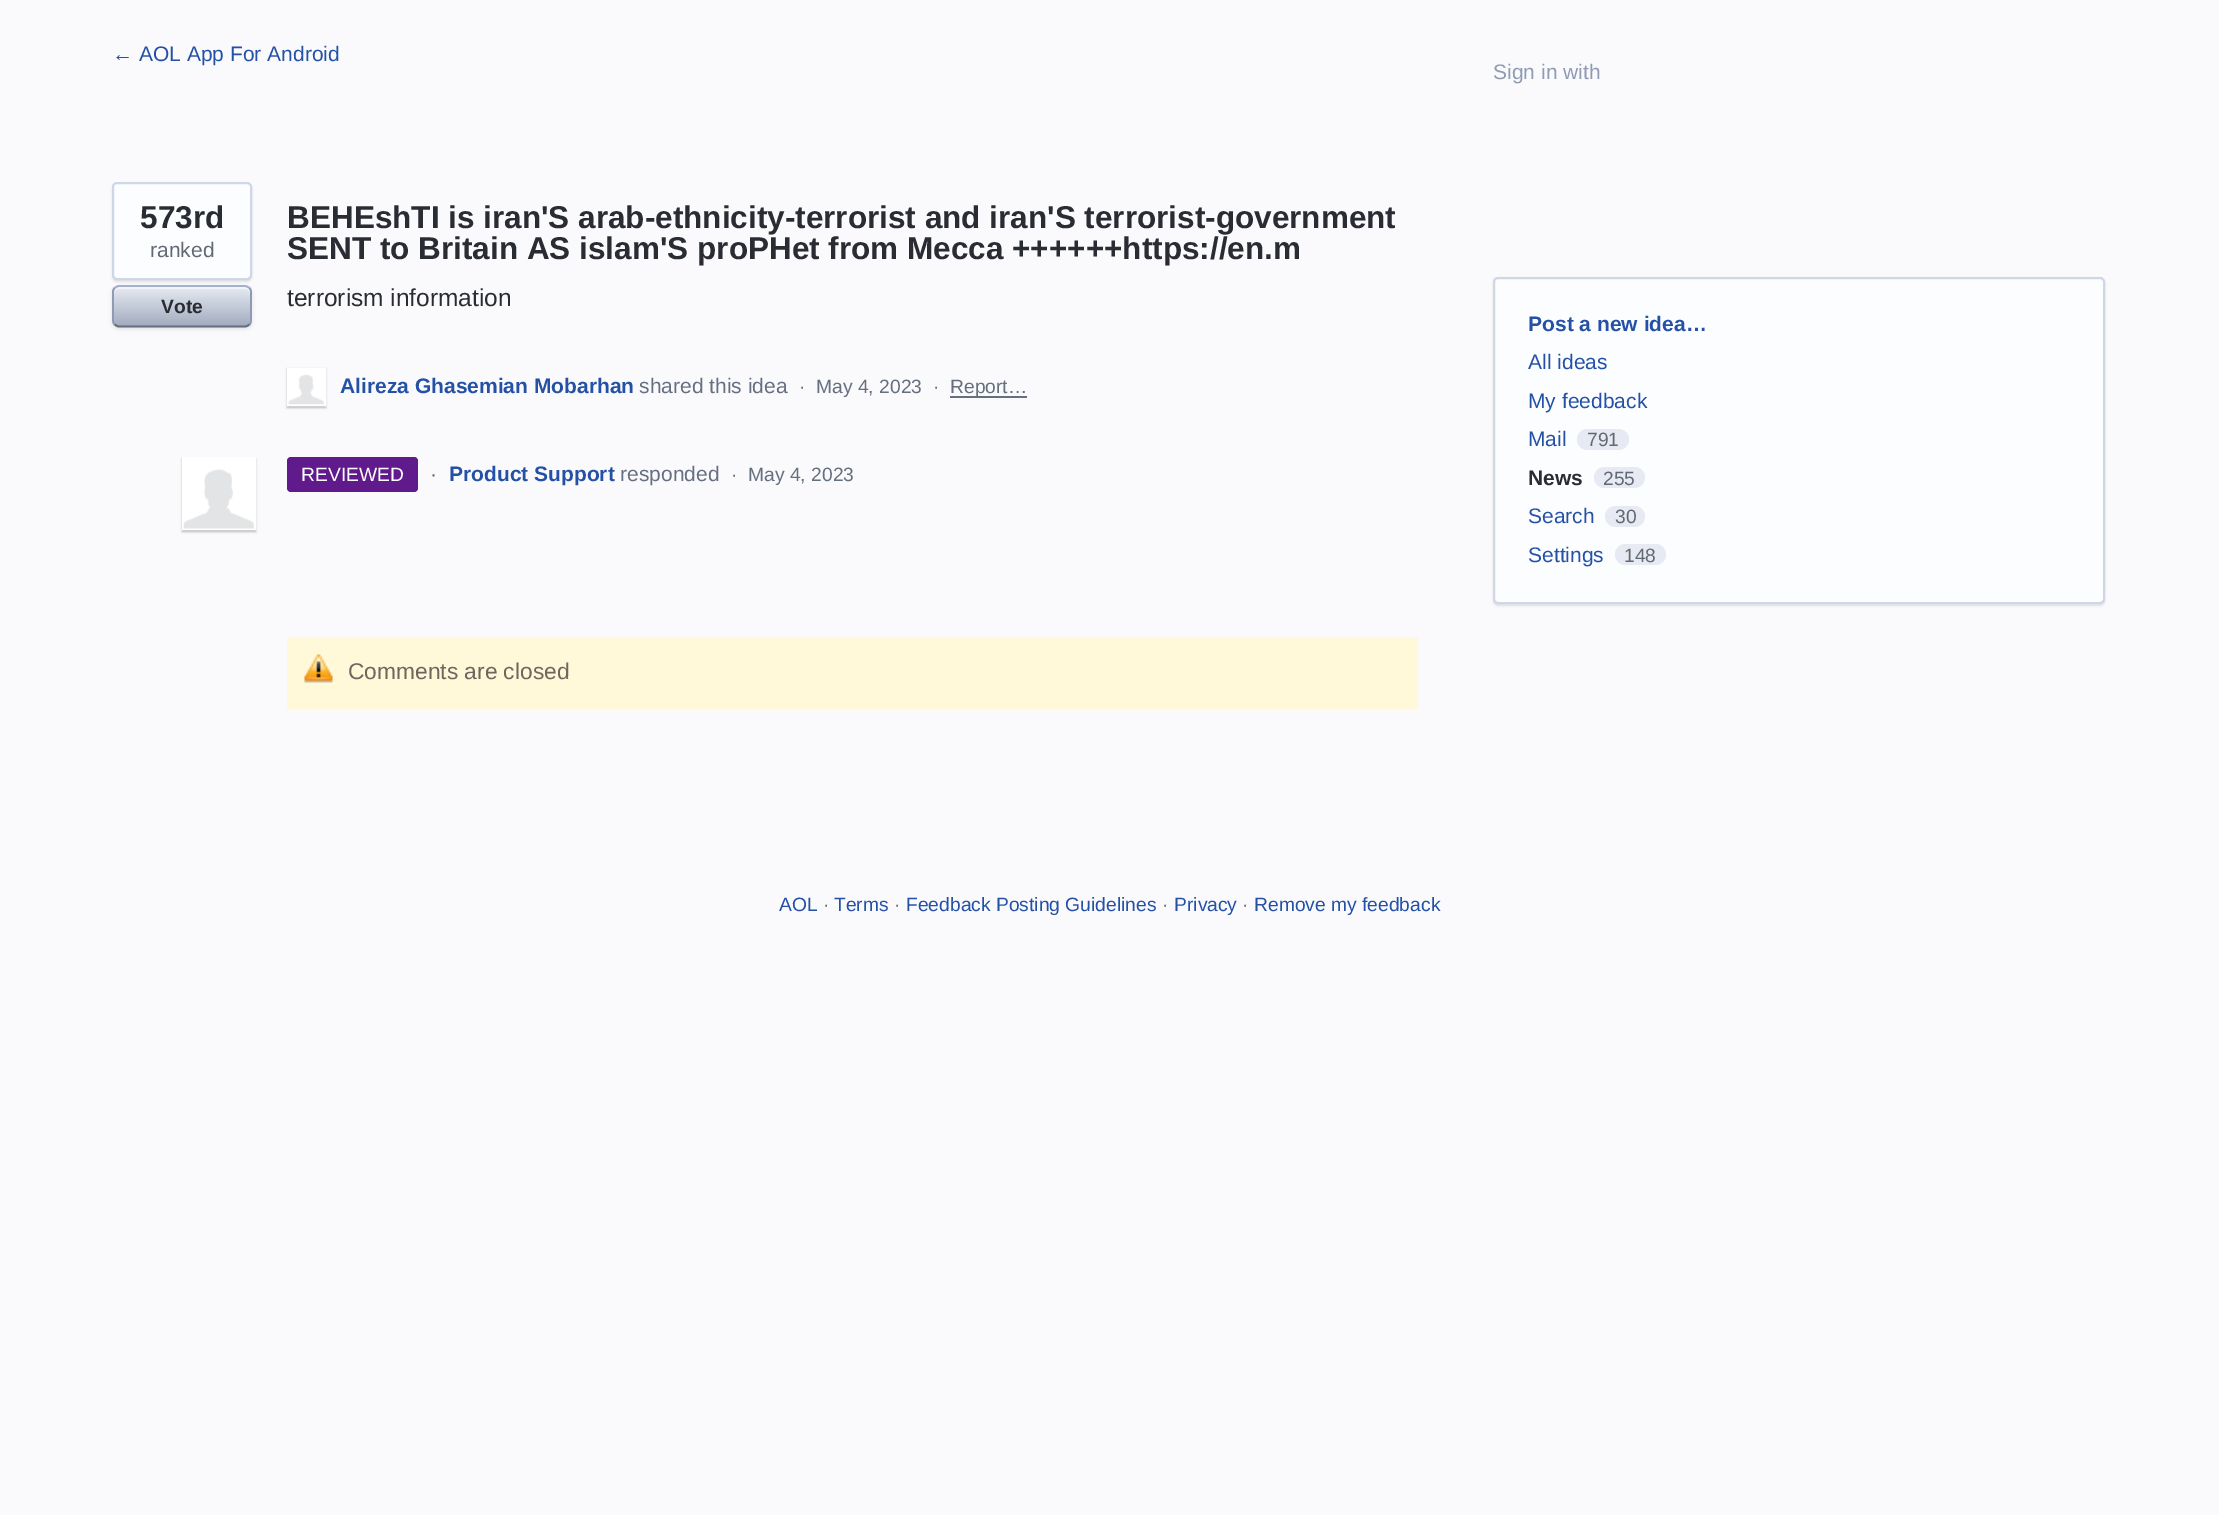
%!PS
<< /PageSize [2219 1515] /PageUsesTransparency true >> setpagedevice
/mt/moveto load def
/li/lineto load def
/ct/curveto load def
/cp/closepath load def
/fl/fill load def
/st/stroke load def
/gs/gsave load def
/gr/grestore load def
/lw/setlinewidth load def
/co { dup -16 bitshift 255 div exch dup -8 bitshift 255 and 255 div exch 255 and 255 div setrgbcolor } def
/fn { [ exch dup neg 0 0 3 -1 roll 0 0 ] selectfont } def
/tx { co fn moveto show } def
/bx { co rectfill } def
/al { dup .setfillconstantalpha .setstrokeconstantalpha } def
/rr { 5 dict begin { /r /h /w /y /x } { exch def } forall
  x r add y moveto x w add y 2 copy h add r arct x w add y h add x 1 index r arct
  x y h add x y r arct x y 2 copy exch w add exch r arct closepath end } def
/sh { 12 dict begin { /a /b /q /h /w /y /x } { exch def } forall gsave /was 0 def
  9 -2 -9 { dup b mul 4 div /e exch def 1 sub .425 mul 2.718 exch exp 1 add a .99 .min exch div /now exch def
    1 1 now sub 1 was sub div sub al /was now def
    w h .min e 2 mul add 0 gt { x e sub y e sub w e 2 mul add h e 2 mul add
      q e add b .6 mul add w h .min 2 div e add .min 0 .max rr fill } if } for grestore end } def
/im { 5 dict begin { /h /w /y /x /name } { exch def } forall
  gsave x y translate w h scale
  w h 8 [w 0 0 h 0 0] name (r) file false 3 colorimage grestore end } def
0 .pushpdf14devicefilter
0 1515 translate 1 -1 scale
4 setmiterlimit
0 0 2219 1515 16#FAFAFC bx
16#000000 co
112 184 140 98 5 1 .1 sh
16#FCFDFF co
113 183 138 96 4 rr gs fl gr
16#CFD7E6 co
2 lw
st
gs
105 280 mt 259 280 li 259 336 li 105 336 li cp 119 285 mt 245 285 li 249 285 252 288 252 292 ct 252 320 li 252 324 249 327 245 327 ct 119 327 li 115 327 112 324 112 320 ct 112 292 li 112 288 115 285 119 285 ct cp eoclip newpath
16#000000 co
112 287 140 42 7 2 .1 sh
gr
gs 114 287 136 39 5 rr clip newpath
<< /ShadingType 2 /ColorSpace /DeviceRGB /Coords [114 287 114 326] /Extend [true true] /Function << /FunctionType 2 /Domain [0 1] /C0 [.902 .918 .949] /C1 [.635 .675 .749] /N 1 >> >> shfill gr
0.5 al
16#FFFFFF co
119 289 mt 245 289 li 248 289 250 291 250 294 ct 250 292 li 250 289 248 287 245 287 ct 119 287 li 116 287 114 289 114 292 ct 114 294 li 114 291 116 289 119 289 ct cp fl
1 al
16#A3B1CC co
1.8 lw
114.5 288 mt 116 287 117.5 286 119 286 ct 245 286 li 246.5 286 248 287 249.5 288 ct st
16#8F9BB3 co
249.5 288 mt 250.5 289 251 290.5 251 292 ct 251 320 li 251 322 250.5 323.5 249.5 324.5 ct st
16#666F80 co
249.5 324.5 mt 248 325.5 246.5 326.5 245 326.5 ct 119 326.5 li 117.5 326.5 116 325.5 114.5 324.5 ct st
16#8F9BB3 co
114.5 324.5 mt 113.5 323.5 113 322 113 320 ct 113 292 li 113 290.5 113.5 289 114.5 288 ct st
16#000000 co
287 369 39 39 0 1 .25 sh
16#FFFFFF co
2 lw
288 369 37 36 rectstroke
(media/1.raw) 288 370 36 35 im
950 396 77 2 16#666F80 bx
16#601A8C co
287 457 131 35 4 rr fl
16#000000 co
182 459 74 73 0 1 .25 sh
16#FFFFFF co
183 458 72 71 rectstroke
(media/2.raw) 183 459 71 70 im
287 637 1131 72 16#FFF9D9 bx
(media/3.raw) 304 654 29 29 im
16#000000 co
1493 278 612 328 5 1 .1 sh
16#FCFDFF co
1494 278 610 325 4 rr gs fl gr
16#CFD7E6 co
st
16#E7EAF2 co
1577 429 52 21 10.5 rr fl
1594 467 51 21 10.5 rr fl
1605 506 40 21 10.5 rr fl
1615 544 51 21 10.5 rr fl
(← AOL App For Android) 112 61 /LiberationSans-Regular 21 16#2451A6 tx
(573rd) 140 228 /LiberationSans-Bold 31.5 16#292C33 tx
(ranked) 150 257 /LiberationSans-Regular 21 16#616973 tx
(Vote) 161 313 /LiberationSans-Bold 19.25 16#292C33 tx
(BEHEshTI is iran'S arab-ethnicity-terrorist and iran'S terrorist-government) 287 228 /LiberationSans-Bold 31.5 16#292C33 tx
(SENT to Britain AS islam'S proPHet from Mecca ++++++https://en.m) 287 259 /LiberationSans-Bold 31.5 16#292C33 tx
(terrorism information) 287 306 /LiberationSans-Regular 24.5 16#292C33 tx
(Alireza Ghasemian Mobarhan) 340 393 /LiberationSans-Bold 21 16#2451A6 tx
(shared this idea) 639 393 /LiberationSans-Regular 21 16#666F80 tx
(·) 799 393 /LiberationSans-Regular 19.25 16#616973 tx
(May 4, 2023) 816 393 /LiberationSans-Regular 19.25 16#666F80 tx
(·) 933 393 /LiberationSans-Regular 19.25 16#616973 tx
(Report…) 950 393 /LiberationSans-Regular 19.25 16#666F80 tx
(REVIEWED) 301 481 /LiberationSans-Regular 19.25 16#FFFFFF tx
(·) 430 481 /LiberationSans-Regular 21 16#616973 tx
(Product Support) 449 481 /LiberationSans-Bold 21 16#2451A6 tx
(responded) 620 481 /LiberationSans-Regular 21 16#666F80 tx
(·) 731 481 /LiberationSans-Regular 19.25 16#616973 tx
(May 4, 2023) 748 481 /LiberationSans-Regular 19.25 16#666F80 tx
(Comments are closed) 348 679 /LiberationSans-Regular 22.75 16#6F675E tx
(Sign in with) 1493 79 /LiberationSans-Regular 21 16#8F9BB3 tx
(Post a new idea…) 1528 331 /LiberationSans-Bold 21 16#2451A6 tx
(All ideas) 1528 369 /LiberationSans-Regular 21 16#2451A6 tx
(My feedback) 1528 408 /LiberationSans-Regular 21 16#2451A6 tx
(Mail) 1528 446 /LiberationSans-Regular 21 16#2451A6 tx
(791) 1587 446 /LiberationSans-Regular 19.25 16#616973 tx
(News) 1528 485 /LiberationSans-Bold 21 16#292C33 tx
(255) 1603 485 /LiberationSans-Regular 19.25 16#616973 tx
(Search) 1528 523 /LiberationSans-Regular 21 16#2451A6 tx
(30) 1615 523 /LiberationSans-Regular 19.25 16#616973 tx
(Settings) 1528 562 /LiberationSans-Regular 21 16#2451A6 tx
(148) 1624 562 /LiberationSans-Regular 19.25 16#616973 tx
(AOL) 779 911 /LiberationSans-Regular 19.25 16#2451A6 tx
(·) 823 911 /LiberationSans-Regular 19.25 16#616973 tx
(Terms) 834 911 /LiberationSans-Regular 19.25 16#2451A6 tx
(·) 894 911 /LiberationSans-Regular 19.25 16#616973 tx
(Feedback Posting Guidelines) 906 911 /LiberationSans-Regular 19.25 16#2451A6 tx
(·) 1162 911 /LiberationSans-Regular 19.25 16#616973 tx
(Privacy) 1174 911 /LiberationSans-Regular 19.25 16#2451A6 tx
(·) 1242 911 /LiberationSans-Regular 19.25 16#616973 tx
(Remove my feedback) 1254 911 /LiberationSans-Regular 19.25 16#2451A6 tx
.poppdf14devicefilter showpage
